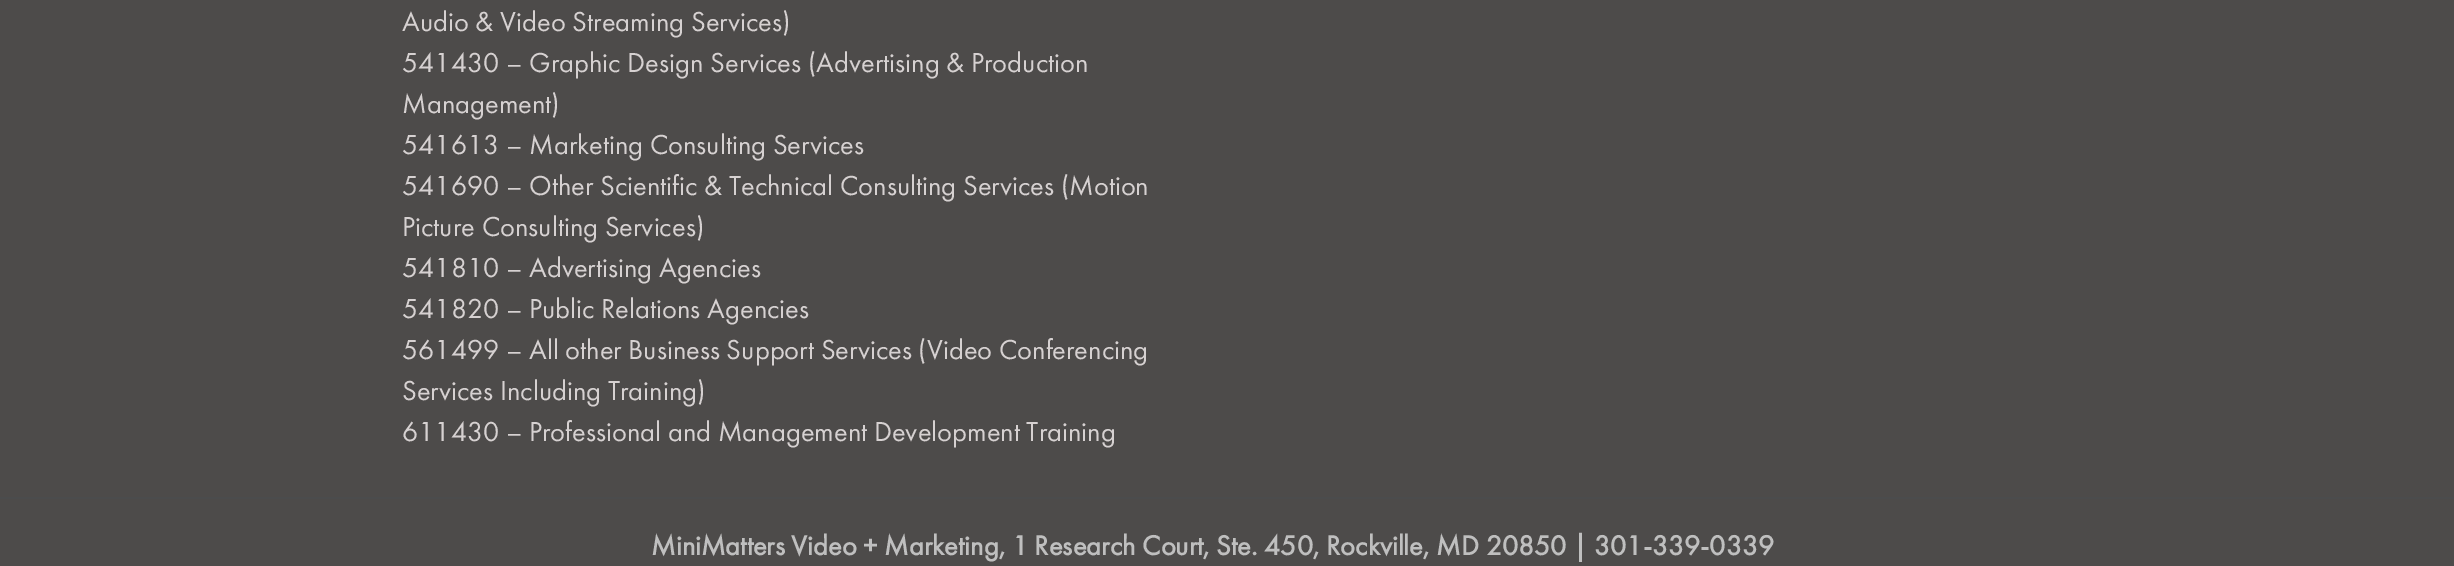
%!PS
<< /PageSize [2454 566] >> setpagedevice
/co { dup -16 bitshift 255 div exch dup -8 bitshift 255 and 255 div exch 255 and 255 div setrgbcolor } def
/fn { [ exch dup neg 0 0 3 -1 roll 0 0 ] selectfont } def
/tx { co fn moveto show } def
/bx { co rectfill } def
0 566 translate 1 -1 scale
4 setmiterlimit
0 0 2454 566 16#4D4B4A bx
0 497 2454 2 16#4B4C4D bx
(Audio & Video Streaming Services\)) 402 31 /FuturaPT-Regular 28.5 16#D6D1D1 tx
(541430 – Graphic Design Services \(Advertising & Production) 402 72 /FuturaPT-Regular 28.5 16#D6D1D1 tx
(Management\)) 402 113 /FuturaPT-Regular 28.5 16#D6D1D1 tx
(541613 – Marketing Consulting Services) 402 154 /FuturaPT-Regular 28.5 16#D6D1D1 tx
(541690 – Other Scientific & Technical Consulting Services \(Motion) 402 195 /FuturaPT-Regular 28.5 16#D6D1D1 tx
(Picture Consulting Services\)) 402 236 /FuturaPT-Regular 28.5 16#D6D1D1 tx
(541810 – Advertising Agencies) 402 277 /FuturaPT-Regular 28.5 16#D6D1D1 tx
(541820 – Public Relations Agencies) 402 318 /FuturaPT-Regular 28.5 16#D6D1D1 tx
(561499 – All other Business Support Services \(Video Conferencing) 402 359 /FuturaPT-Regular 28.5 16#D6D1D1 tx
(Services Including Training\)) 402 400 /FuturaPT-Regular 28.5 16#D6D1D1 tx
(611430 – Professional and Management Development Training) 402 441 /FuturaPT-Regular 28.5 16#D6D1D1 tx
(MiniMatters Video + Marketing, 1 Research Court, Ste. 450, Rockville, MD 20850 | 301-339-0339) 651 555 /FuturaPT-Bold 28.5 16#BFBFBF tx
showpage
